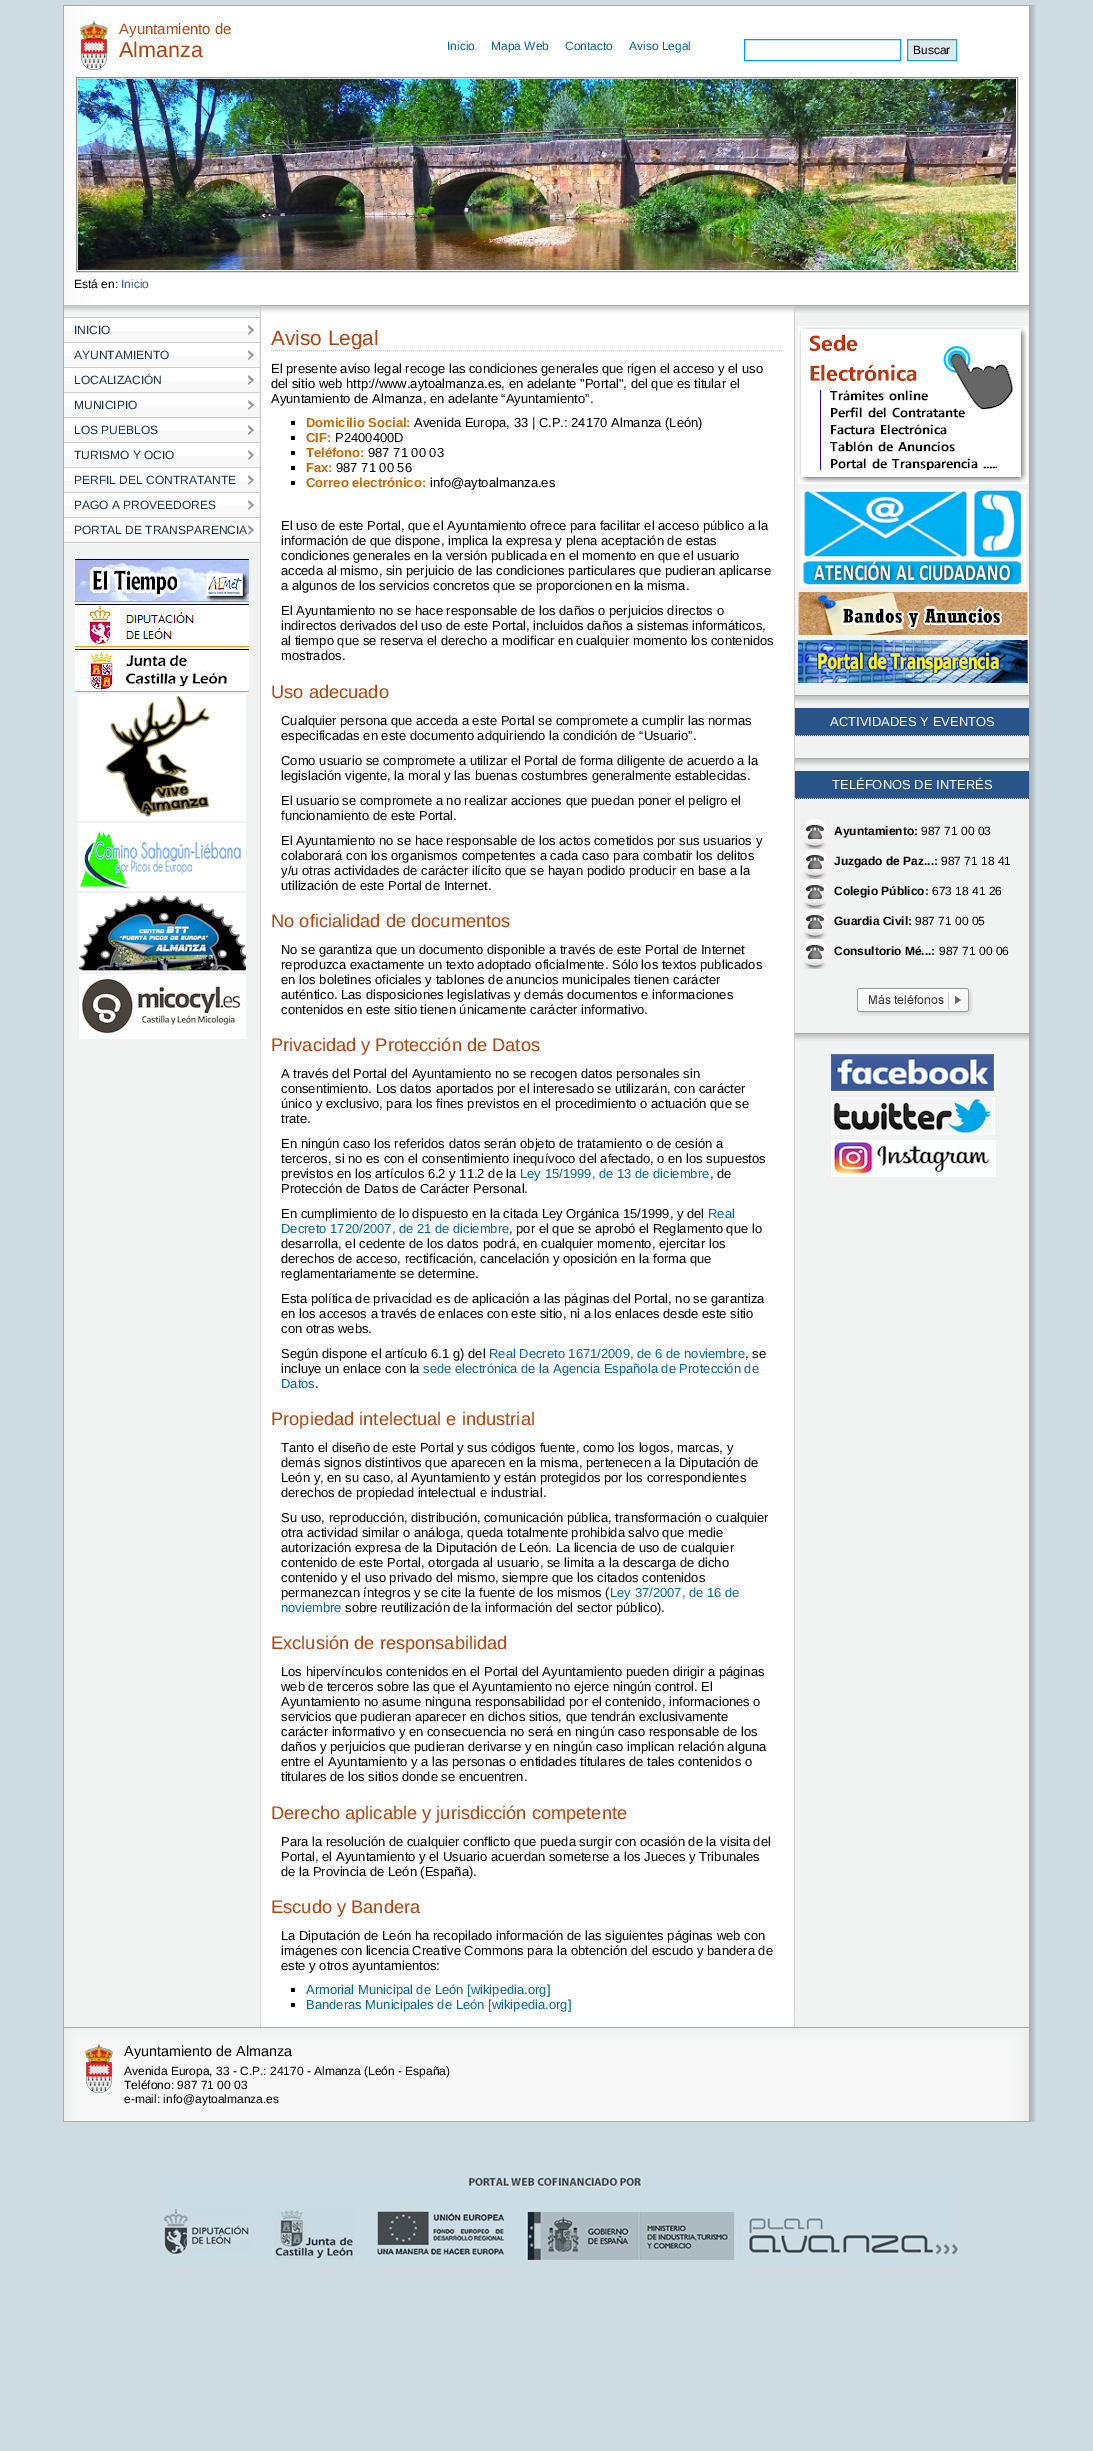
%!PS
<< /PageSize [1093 2451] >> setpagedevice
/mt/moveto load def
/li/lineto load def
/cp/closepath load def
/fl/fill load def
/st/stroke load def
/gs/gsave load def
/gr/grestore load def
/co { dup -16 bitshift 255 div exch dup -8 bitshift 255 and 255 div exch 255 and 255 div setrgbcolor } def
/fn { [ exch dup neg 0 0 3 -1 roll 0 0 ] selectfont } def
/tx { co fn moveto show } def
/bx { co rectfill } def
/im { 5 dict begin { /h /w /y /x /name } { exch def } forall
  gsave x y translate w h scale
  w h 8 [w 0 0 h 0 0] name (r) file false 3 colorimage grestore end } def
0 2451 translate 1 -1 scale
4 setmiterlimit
0 0 1093 2451 16#CEDBE3 bx
(media/1.raw) 63 5 973 2117 im
64 5 965 1 16#AAAAAA bx
(media/2.raw) 80 21 28 49 im
16#0099FF co
744.5 39.5 156 21 rectstroke
16#DDE7EC co
907.5 39.5 mt 956.5 39.5 li 956.5 60.5 li 907.5 60.5 li cp gs fl gr
16#1DA1BC co
st
16#8F8F8F co
76.5 77.5 941 194 rectstroke
(media/3.raw) 78 79 938 191 im
(media/4.raw) 64 313 965 1714 im
64 312 196 1 16#F1F2F2 bx
(media/5.raw) 64 305 196 7 im
260 305 1 735 16#CCCCCC bx
64 317 196 1 16#CCCCCC bx
64 342 196 1 16#CCCCCC bx
64 318 195 13 16#FFFFFF bx
64 331 195 11 16#F8F8F8 bx
259 318 1 24 16#EEEEEE bx
(media/6.raw) 248 325 6 10 im
64 367 196 1 16#CCCCCC bx
64 343 195 13 16#FFFFFF bx
64 356 195 11 16#F8F8F8 bx
259 343 1 24 16#EEEEEE bx
(media/6.raw) 248 350 6 10 im
64 392 196 1 16#CCCCCC bx
64 368 195 13 16#FFFFFF bx
64 381 195 11 16#F8F8F8 bx
259 368 1 24 16#EEEEEE bx
(media/6.raw) 248 375 6 10 im
64 417 196 1 16#CCCCCC bx
64 393 195 13 16#FFFFFF bx
64 406 195 11 16#F8F8F8 bx
259 393 1 24 16#EEEEEE bx
(media/6.raw) 248 400 6 10 im
64 442 196 1 16#CCCCCC bx
64 418 195 13 16#FFFFFF bx
64 431 195 11 16#F8F8F8 bx
259 418 1 24 16#EEEEEE bx
(media/6.raw) 248 425 6 10 im
64 467 196 1 16#CCCCCC bx
64 443 195 13 16#FFFFFF bx
64 456 195 11 16#F8F8F8 bx
259 443 1 24 16#EEEEEE bx
(media/6.raw) 248 450 6 10 im
64 492 196 1 16#CCCCCC bx
64 468 195 13 16#FFFFFF bx
64 481 195 11 16#F8F8F8 bx
259 468 1 24 16#EEEEEE bx
(media/6.raw) 248 475 6 10 im
64 517 196 1 16#CCCCCC bx
64 493 195 13 16#FFFFFF bx
64 506 195 11 16#F8F8F8 bx
259 493 1 24 16#EEEEEE bx
(media/6.raw) 248 500 6 10 im
64 542 196 1 16#CCCCCC bx
64 518 195 13 16#FFFFFF bx
64 531 195 11 16#F8F8F8 bx
259 518 1 24 16#EEEEEE bx
(media/6.raw) 248 525 6 10 im
(media/7.raw) 75 559 174 43 im
(media/8.raw) 75 604 174 43 im
(media/9.raw) 75 649 174 43 im
(media/10.raw) 78 694 168 127 im
(media/11.raw) 78 823 168 68 im
(media/12.raw) 78 893 168 79 im
(media/13.raw) 79 974 167 65 im
(media/14.raw) 261 306 533 7 im
261 305 768 1 16#AAAAAA bx
794 305 1 1707 16#CCCCCC bx
[1 1] 0 setdash
271 350.5 mt 784 350.5 li st
291 421 4 4 16#000000 bx
291 436 4 4 16#000000 bx
291 451 4 4 16#000000 bx
291 466 4 4 16#000000 bx
291 481 4 4 16#000000 bx
291 1988 4 4 16#000000 bx
291 2003 4 4 16#000000 bx
(media/15.raw) 795 306 234 7 im
(media/16.raw) 798 326 230 158 im
(media/17.raw) 800 489 226 98 im
(media/18.raw) 798 592 230 43 im
(media/19.raw) 798 640 230 43 im
(media/15.raw) 795 696 234 7 im
795 695 234 1 16#AAAAAA bx
795 708 234 28 16#29548A bx
16#CCCCCC co
795 735.5 mt 1029 735.5 li st
(media/15.raw) 795 759 234 7 im
795 758 234 1 16#AAAAAA bx
795 771 234 28 16#29548A bx
16#CCCCCC co
795 798.5 mt 1029 798.5 li st
(media/20.raw) 800 819 31 30 im
(media/20.raw) 800 849 31 30 im
(media/20.raw) 800 879 31 30 im
(media/20.raw) 800 909 31 30 im
(media/20.raw) 800 939 31 30 im
(media/21.raw) 857 984 116 32 im
(media/15.raw) 795 1034 234 7 im
795 1033 234 1 16#AAAAAA bx
(media/22.raw) 831 1054 164 38 im
(media/23.raw) 831 1097 164 38 im
(media/24.raw) 831 1140 165 37 im
(media/25.raw) 64 2028 965 93 im
64 2027 965 1 16#AAAAAA bx
64 2121 965 1 16#AAAAAA bx
(media/26.raw) 85 2044 28 49 im
(media/27.raw) 159 2172 801 88 im
(Ayuntamiento de) 119 34 /LiberationSans-Regular 15 16#B4430D tx
(Almanza) 119 57 /LiberationSans-Regular 21.5 16#B4430D tx
(Inicio) 447 50 /LiberationSans-Regular 12 16#006699 tx
(Mapa Web) 491 50 /LiberationSans-Regular 12 16#006699 tx
(Contacto) 565 50 /LiberationSans-Regular 12 16#006699 tx
(Aviso Legal) 629 50 /LiberationSans-Regular 12 16#006699 tx
(Buscar) 913 54 /LiberationSans-Regular 12 16#000000 tx
(Está en:) 74 288 /LiberationSans-Regular 12 16#000000 tx
(Inicio) 121 288 /LiberationSans-Regular 12 16#336699 tx
(INICIO) 74 334 /LiberationSans-Regular 12 16#1A3240 tx
(AYUNTAMIENTO) 74 359 /LiberationSans-Regular 12 16#1A3240 tx
(LOCALIZACIÓN) 74 384 /LiberationSans-Regular 12 16#1A3240 tx
(MUNICIPIO) 74 409 /LiberationSans-Regular 12 16#1A3240 tx
(LOS PUEBLOS) 74 434 /LiberationSans-Regular 12 16#1A3240 tx
(TURISMO Y OCIO) 74 459 /LiberationSans-Regular 12 16#1A3240 tx
(PERFIL DEL CONTRATANTE) 74 484 /LiberationSans-Regular 12 16#1A3240 tx
(PAGO A PROVEEDORES) 74 509 /LiberationSans-Regular 12 16#1A3240 tx
(PORTAL DE TRANSPARENCIA) 74 534 /LiberationSans-Regular 12 16#1A3240 tx
(Aviso Legal) 271 345 /LiberationSans-Regular 20.75 16#B4430D tx
(El presente aviso legal recoge las condiciones generales que rigen el acceso y el uso) 271 373 /LiberationSans-Regular 13 16#000000 tx
(del sitio web http://www.aytoalmanza.es, en adelante "Portal", del que es titular el) 271 388 /LiberationSans-Regular 13 16#000000 tx
(Ayuntamiento de Almanza, en adelante “Ayuntamiento”.) 271 403 /LiberationSans-Regular 13 16#000000 tx
(Domicilio Social:) 306 427 /LiberationSans-Bold 13 16#CC6600 tx
(Avenida Europa, 33 | C.P.: 24170 Almanza \(León\)) 414 427 /LiberationSans-Regular 13 16#000000 tx
(CIF:) 306 442 /LiberationSans-Bold 13 16#CC6600 tx
(P2400400D) 335 442 /LiberationSans-Regular 13 16#000000 tx
(Teléfono:) 306 457 /LiberationSans-Bold 13 16#CC6600 tx
(987 71 00 03) 368 457 /LiberationSans-Regular 13 16#000000 tx
(Fax:) 306 472 /LiberationSans-Bold 13 16#CC6600 tx
(987 71 00 56) 336 472 /LiberationSans-Regular 13 16#000000 tx
(Correo electrónico:) 306 487 /LiberationSans-Bold 13 16#CC6600 tx
(info@aytoalmanza.es) 430 487 /LiberationSans-Regular 13 16#000000 tx
(El uso de este Portal, que el Ayuntamiento ofrece para facilitar el acceso público a la) 281 530 /LiberationSans-Regular 13 16#000000 tx
(información de que dispone, implica la expresa y plena aceptación de estas) 281 545 /LiberationSans-Regular 13 16#000000 tx
(condiciones generales en la versión publicada en el momento en que el usuario) 281 560 /LiberationSans-Regular 13 16#000000 tx
(acceda al mismo, sin perjuicio de las condiciones particulares que pudieran aplicarse) 281 575 /LiberationSans-Regular 13 16#000000 tx
(a algunos de los servicios concretos que se proporcionen en la misma.) 281 590 /LiberationSans-Regular 13 16#000000 tx
(El Ayuntamiento no se hace responsable de los daños o perjuicios directos o) 281 615 /LiberationSans-Regular 13 16#000000 tx
(indirectos derivados del uso de este Portal, incluidos daños a sistemas informáticos,) 281 630 /LiberationSans-Regular 13 16#000000 tx
(al tiempo que se reserva el derecho a modificar en cualquier momento los contenidos) 281 645 /LiberationSans-Regular 13 16#000000 tx
(mostrados.) 281 660 /LiberationSans-Regular 13 16#000000 tx
(Uso adecuado) 271 698 /LiberationSans-Regular 18.25 16#B4430D tx
(Cualquier persona que acceda a este Portal se compromete a cumplir las normas) 281 725 /LiberationSans-Regular 13 16#000000 tx
(especificadas en este documento adquiriendo la condición de “Usuario”.) 281 740 /LiberationSans-Regular 13 16#000000 tx
(Como usuario se compromete a utilizar el Portal de forma diligente de acuerdo a la) 281 765 /LiberationSans-Regular 13 16#000000 tx
(legislación vigente, la moral y las buenas costumbres generalmente establecidas.) 281 780 /LiberationSans-Regular 13 16#000000 tx
(El usuario se compromete a no realizar acciones que puedan poner el peligro el) 281 805 /LiberationSans-Regular 13 16#000000 tx
(funcionamiento de este Portal.) 281 820 /LiberationSans-Regular 13 16#000000 tx
(El Ayuntamiento no se hace responsable de los actos cometidos por sus usuarios y) 281 845 /LiberationSans-Regular 13 16#000000 tx
(colaborará con los organismos competentes a cada caso para combatir los delitos) 281 860 /LiberationSans-Regular 13 16#000000 tx
(y/u otras actividades de carácter ilícito que se hayan podido producir en base a la) 281 875 /LiberationSans-Regular 13 16#000000 tx
(utilización de este Portal de Internet.) 281 890 /LiberationSans-Regular 13 16#000000 tx
(No oficialidad de documentos) 271 927 /LiberationSans-Regular 18.25 16#B4430D tx
(No se garantiza que un documento disponible a través de este Portal de Internet) 281 954 /LiberationSans-Regular 13 16#000000 tx
(reproduzca exactamente un texto adoptado oficialmente. Sólo los textos publicados) 281 969 /LiberationSans-Regular 13 16#000000 tx
(en los boletines oficiales y tablones de anuncios municipales tienen carácter) 281 984 /LiberationSans-Regular 13 16#000000 tx
(auténtico. Las disposiciones legislativas y demás documentos e informaciones) 281 999 /LiberationSans-Regular 13 16#000000 tx
(contenidos en este sitio tienen únicamente carácter informativo.) 281 1014 /LiberationSans-Regular 13 16#000000 tx
(Privacidad y Protección de Datos) 271 1051 /LiberationSans-Regular 18.25 16#B4430D tx
(A través del Portal del Ayuntamiento no se recogen datos personales sin) 281 1078 /LiberationSans-Regular 13 16#000000 tx
(consentimiento. Los datos aportados por el interesado se utilizarán, con carácter) 281 1093 /LiberationSans-Regular 13 16#000000 tx
(único y exclusivo, para los fines previstos en el procedimiento o actuación que se) 281 1108 /LiberationSans-Regular 13 16#000000 tx
(trate.) 281 1123 /LiberationSans-Regular 13 16#000000 tx
(En ningún caso los referidos datos serán objeto de tratamiento o de cesión a) 281 1148 /LiberationSans-Regular 13 16#000000 tx
(terceros, si no es con el consentimiento inequívoco del afectado, o en los supuestos) 281 1163 /LiberationSans-Regular 13 16#000000 tx
(previstos en los artículos 6.2 y 11.2 de la) 281 1178 /LiberationSans-Regular 13 16#000000 tx
(Ley 15/1999, de 13 de diciembre) 520 1178 /LiberationSans-Regular 13 16#006699 tx
(, de) 710 1178 /LiberationSans-Regular 13 16#000000 tx
(Protección de Datos de Carácter Personal.) 281 1193 /LiberationSans-Regular 13 16#000000 tx
(En cumplimiento de lo dispuesto en la citada Ley Orgánica 15/1999, y del) 281 1218 /LiberationSans-Regular 13 16#000000 tx
(Real) 708 1218 /LiberationSans-Regular 13 16#006699 tx
(Decreto 1720/2007, de 21 de diciembre) 281 1233 /LiberationSans-Regular 13 16#006699 tx
(, por el que se aprobó el Reglamento que lo) 509 1233 /LiberationSans-Regular 13 16#000000 tx
(desarrolla, el cedente de los datos podrá, en cualquier momento, ejercitar los) 281 1248 /LiberationSans-Regular 13 16#000000 tx
(derechos de acceso, rectificación, cancelación y oposición en la forma que) 281 1263 /LiberationSans-Regular 13 16#000000 tx
(reglamentariamente se determine.) 281 1278 /LiberationSans-Regular 13 16#000000 tx
(Esta política de privacidad es de aplicación a las páginas del Portal, no se garantiza) 281 1303 /LiberationSans-Regular 13 16#000000 tx
(en los accesos a través de enlaces con este sitio, ni a los enlaces desde este sitio) 281 1318 /LiberationSans-Regular 13 16#000000 tx
(con otras webs.) 281 1333 /LiberationSans-Regular 13 16#000000 tx
(Según dispone el artículo 6.1 g\) del) 281 1358 /LiberationSans-Regular 13 16#000000 tx
(Real Decreto 1671/2009, de 6 de noviembre) 489 1358 /LiberationSans-Regular 13 16#006699 tx
(, se) 745 1358 /LiberationSans-Regular 13 16#000000 tx
(incluye un enlace con la) 281 1373 /LiberationSans-Regular 13 16#000000 tx
(sede electrónica de la Agencia Española de Protección de) 423 1373 /LiberationSans-Regular 13 16#006699 tx
(Datos) 281 1388 /LiberationSans-Regular 13 16#006699 tx
(.) 315 1388 /LiberationSans-Regular 13 16#000000 tx
(Propiedad intelectual e industrial) 271 1425 /LiberationSans-Regular 18.25 16#B4430D tx
(Tanto el diseño de este Portal y sus códigos fuente, como los logos, marcas, y) 281 1452 /LiberationSans-Regular 13 16#000000 tx
(demás signos distintivos que aparecen en la misma, pertenecen a la Diputación de) 281 1467 /LiberationSans-Regular 13 16#000000 tx
(León y, en su caso, al Ayuntamiento y están protegidos por los correspondientes) 281 1482 /LiberationSans-Regular 13 16#000000 tx
(derechos de propiedad intelectual e industrial.) 281 1497 /LiberationSans-Regular 13 16#000000 tx
(Su uso, reproducción, distribución, comunicación pública, transformación o cualquier) 281 1522 /LiberationSans-Regular 13 16#000000 tx
(otra actividad similar o análoga, queda totalmente prohibida salvo que medie) 281 1537 /LiberationSans-Regular 13 16#000000 tx
(autorización expresa de la Diputación de León. La licencia de uso de cualquier) 281 1552 /LiberationSans-Regular 13 16#000000 tx
(contenido de este Portal, otorgada al usuario, se limita a la descarga de dicho) 281 1567 /LiberationSans-Regular 13 16#000000 tx
(contenido y el uso privado del mismo, siempre que los citados contenidos) 281 1582 /LiberationSans-Regular 13 16#000000 tx
(permanezcan íntegros y se cite la fuente de los mismos \() 281 1597 /LiberationSans-Regular 13 16#000000 tx
(Ley 37/2007, de 16 de) 610 1597 /LiberationSans-Regular 13 16#006699 tx
(noviembre) 281 1612 /LiberationSans-Regular 13 16#006699 tx
(sobre reutilización de la información del sector público\).) 345 1612 /LiberationSans-Regular 13 16#000000 tx
(Exclusión de responsabilidad) 271 1649 /LiberationSans-Regular 18.25 16#B4430D tx
(Los hipervínculos contenidos en el Portal del Ayuntamiento pueden dirigir a páginas) 281 1676 /LiberationSans-Regular 13 16#000000 tx
(web de terceros sobre las que el Ayuntamiento no ejerce ningún control. El) 281 1691 /LiberationSans-Regular 13 16#000000 tx
(Ayuntamiento no asume ninguna responsabilidad por el contenido, informaciones o) 281 1706 /LiberationSans-Regular 13 16#000000 tx
(servicios que pudieran aparecer en dichos sitios, que tendrán exclusivamente) 281 1721 /LiberationSans-Regular 13 16#000000 tx
(carácter informativo y en consecuencia no será en ningún caso responsable de los) 281 1736 /LiberationSans-Regular 13 16#000000 tx
(daños y perjuicios que pudieran derivarse y en ningún caso implican relación alguna) 281 1751 /LiberationSans-Regular 13 16#000000 tx
(entre el Ayuntamiento y a las personas o entidades titulares de tales contenidos o) 281 1766 /LiberationSans-Regular 13 16#000000 tx
(titulares de los sitios donde se encuentren.) 281 1781 /LiberationSans-Regular 13 16#000000 tx
(Derecho aplicable y jurisdicción competente) 271 1819 /LiberationSans-Regular 18.25 16#B4430D tx
(Para la resolución de cualquier conflicto que pueda surgir con ocasión de la visita del) 281 1846 /LiberationSans-Regular 13 16#000000 tx
(Portal, el Ayuntamiento y el Usuario acuerdan someterse a los Jueces y Tribunales) 281 1861 /LiberationSans-Regular 13 16#000000 tx
(de la Provincia de León \(España\).) 281 1876 /LiberationSans-Regular 13 16#000000 tx
(Escudo y Bandera) 271 1913 /LiberationSans-Regular 18.25 16#B4430D tx
(La Diputación de León ha recopilado información de las siguientes páginas web con) 281 1940 /LiberationSans-Regular 13 16#000000 tx
(imágenes con licencia Creative Commons para la obtención del escudo y bandera de) 281 1955 /LiberationSans-Regular 13 16#000000 tx
(este y otros ayuntamientos:) 281 1970 /LiberationSans-Regular 13 16#000000 tx
(Armorial Municipal de León [wikipedia.org]) 306 1994 /LiberationSans-Regular 13 16#006699 tx
(Banderas Municipales de León [wikipedia.org]) 306 2009 /LiberationSans-Regular 13 16#006699 tx
(ACTIVIDADES Y EVENTOS) 830 726 /LiberationSans-Regular 13 16#FFFFFF tx
(TELÉFONOS DE INTERÉS) 832 789 /LiberationSans-Regular 13 16#FFFFFF tx
(Ayuntamiento:) 834 835 /LiberationSans-Bold 12 16#000000 tx
(987 71 00 03) 921 835 /LiberationSans-Regular 12 16#000000 tx
(Juzgado de Paz...:) 834 865 /LiberationSans-Bold 12 16#000000 tx
(987 71 18 41) 941 865 /LiberationSans-Regular 12 16#000000 tx
(Colegio Público:) 834 895 /LiberationSans-Bold 12 16#000000 tx
(673 18 41 26) 932 895 /LiberationSans-Regular 12 16#000000 tx
(Guardia Civil:) 834 925 /LiberationSans-Bold 12 16#000000 tx
(987 71 00 05) 915 925 /LiberationSans-Regular 12 16#000000 tx
(Consultorio Mé...:) 834 955 /LiberationSans-Bold 12 16#000000 tx
(987 71 00 06) 939 955 /LiberationSans-Regular 12 16#000000 tx
(Ayuntamiento de Almanza) 124 2056 /LiberationSans-Regular 14.4 16#000000 tx
(Avenida Europa, 33 - C.P.: 24170 - Almanza \(León - España\)) 124 2075 /LiberationSans-Regular 12 16#000000 tx
(Teléfono: 987 71 00 03) 124 2089 /LiberationSans-Regular 12 16#000000 tx
(e-mail: info@aytoalmanza.es) 124 2103 /LiberationSans-Regular 12 16#000000 tx
showpage
